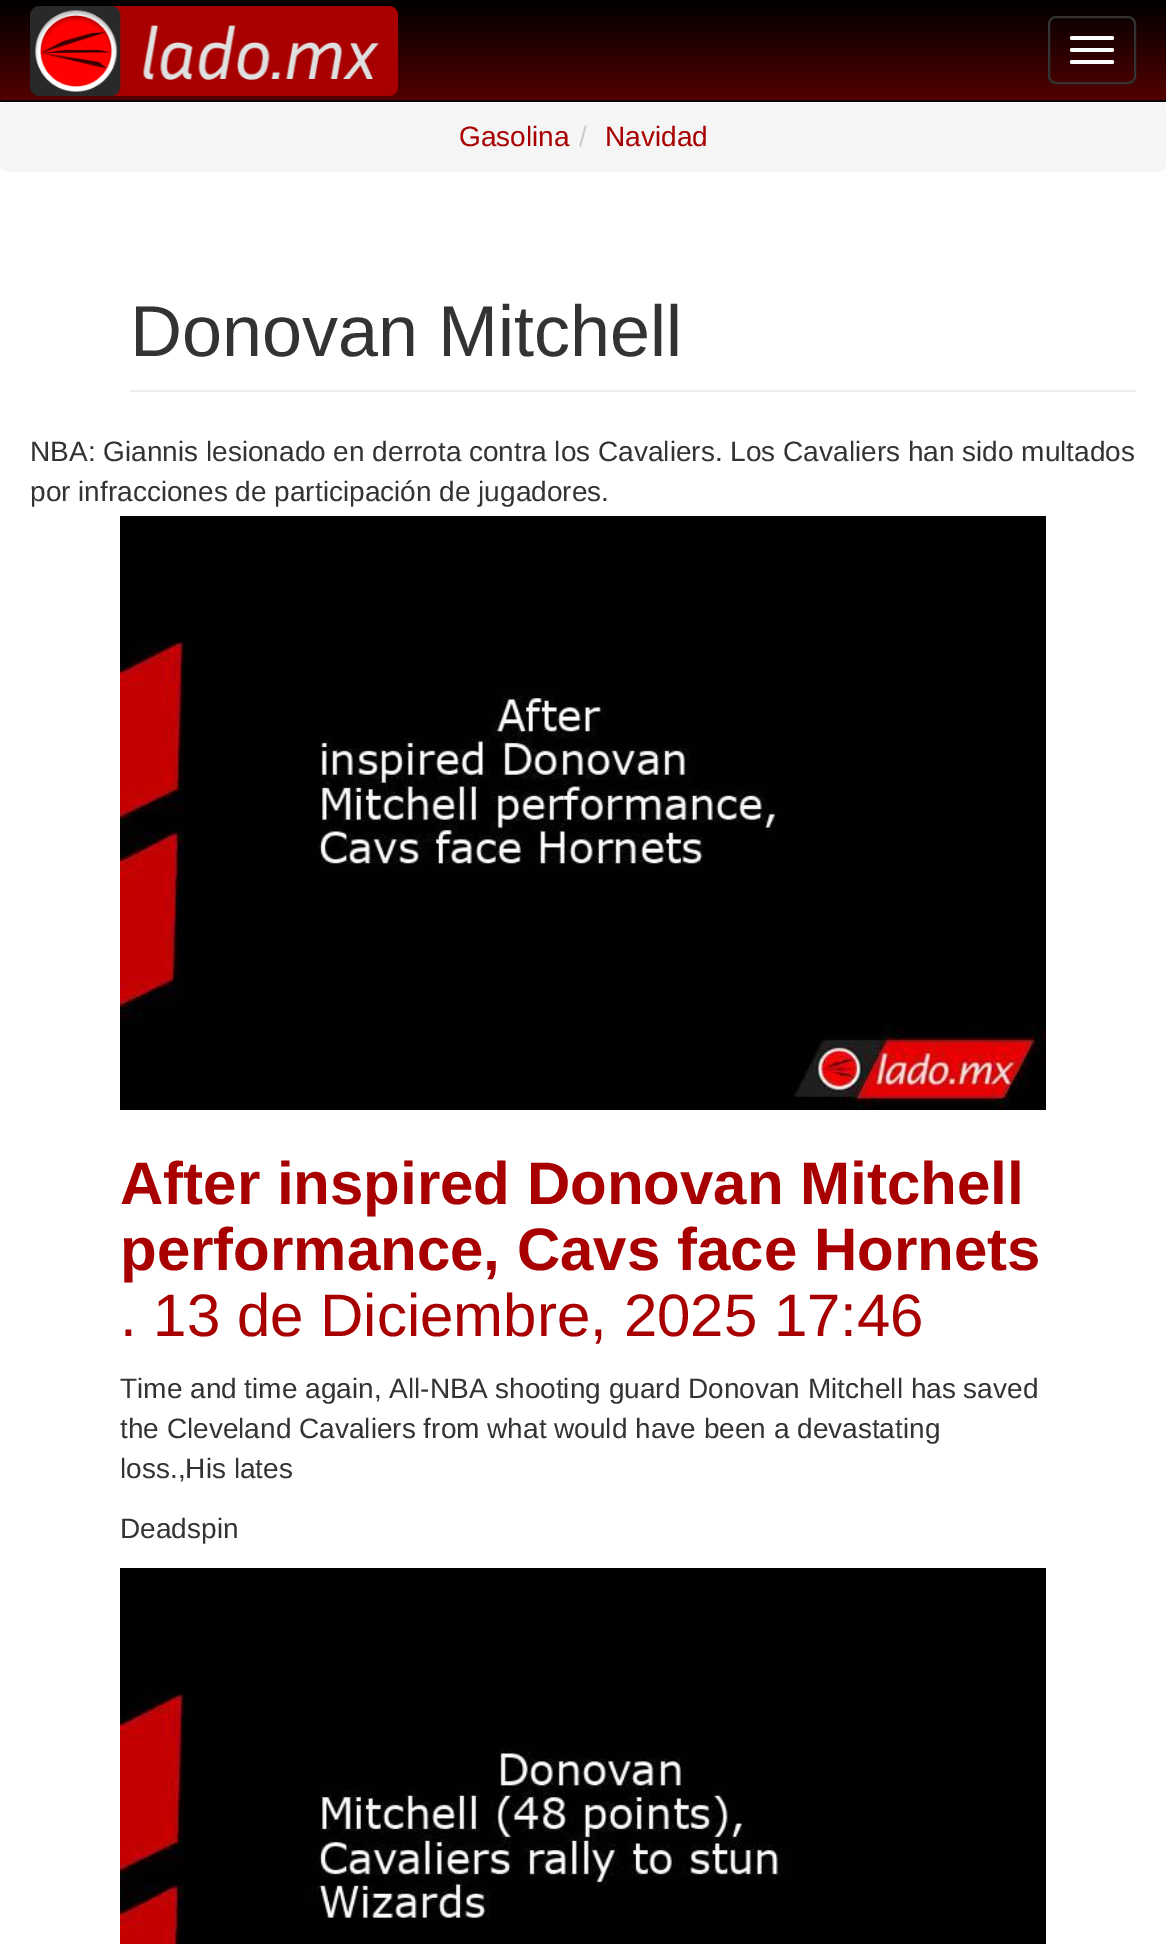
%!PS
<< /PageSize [1166 1944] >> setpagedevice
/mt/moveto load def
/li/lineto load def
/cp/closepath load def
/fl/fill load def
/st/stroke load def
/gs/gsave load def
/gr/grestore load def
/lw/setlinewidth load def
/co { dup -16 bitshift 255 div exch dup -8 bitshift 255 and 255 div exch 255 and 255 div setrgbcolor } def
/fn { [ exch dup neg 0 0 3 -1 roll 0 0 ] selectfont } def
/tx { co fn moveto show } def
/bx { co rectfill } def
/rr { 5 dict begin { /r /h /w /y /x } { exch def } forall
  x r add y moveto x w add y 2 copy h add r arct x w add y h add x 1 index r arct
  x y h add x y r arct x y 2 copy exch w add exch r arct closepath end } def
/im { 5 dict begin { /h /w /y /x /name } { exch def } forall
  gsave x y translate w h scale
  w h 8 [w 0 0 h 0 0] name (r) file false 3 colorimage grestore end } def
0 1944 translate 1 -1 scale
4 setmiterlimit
0 0 1166 1944 16#FFFFFF bx
gs 0 0 mt 1166 0 li 1166 100 li 0 100 li cp clip newpath
<< /ShadingType 2 /ColorSpace /DeviceRGB /Coords [583 0 583 100] /Extend [true true] /Function << /FunctionType 2 /Domain [0 1] /C0 [0 0 0] /C1 [.329 0 0] /N 1 >> >> shfill gr
16#F5F5F5 co
0 100 1166 72 8 rr fl
0 100 1166 2 16#080808 bx
(media/1.raw) 30 6 369 90 im
16#333333 co
2 lw
1049 17 86 66 7 rr st
16#FFFFFF co
1070 36 44 4 2 rr fl
1070 48 44 4 2 rr fl
1070 60 44 4 2 rr fl
130 390 1006 2 16#EEEEEE bx
(media/2.raw) 120 516 926 594 im
(media/3.raw) 120 1568 926 376 im
(Gasolina) 459 146 /LiberationSans-Regular 28 16#A80000 tx
(/) 579 146 /LiberationSans-Regular 28 16#CCCCCC tx
(Navidad) 605 146 /LiberationSans-Regular 28 16#A80000 tx
(Donovan Mitchell) 130 356 /LiberationSans-Regular 72 16#333333 tx
(NBA: Giannis lesionado en derrota contra los Cavaliers. Los Cavaliers han sido multados) 30 461 /LiberationSans-Regular 28 16#333333 tx
(por infracciones de participación de jugadores.) 30 501 /LiberationSans-Regular 28 16#333333 tx
(After inspired Donovan Mitchell) 120 1204 /LiberationSans-Bold 60 16#A80000 tx
(performance, Cavs face Hornets) 120 1270 /LiberationSans-Bold 60 16#A80000 tx
(. 13 de Diciembre, 2025 17:46) 120 1336 /LiberationSans-Regular 60 16#A80000 tx
(Time and time again, All-NBA shooting guard Donovan Mitchell has saved) 120 1398 /LiberationSans-Regular 28 16#333333 tx
(the Cleveland Cavaliers from what would have been a devastating) 120 1438 /LiberationSans-Regular 28 16#333333 tx
(loss.,His lates) 120 1478 /LiberationSans-Regular 28 16#333333 tx
(Deadspin) 120 1538 /LiberationSans-Regular 28 16#333333 tx
showpage
